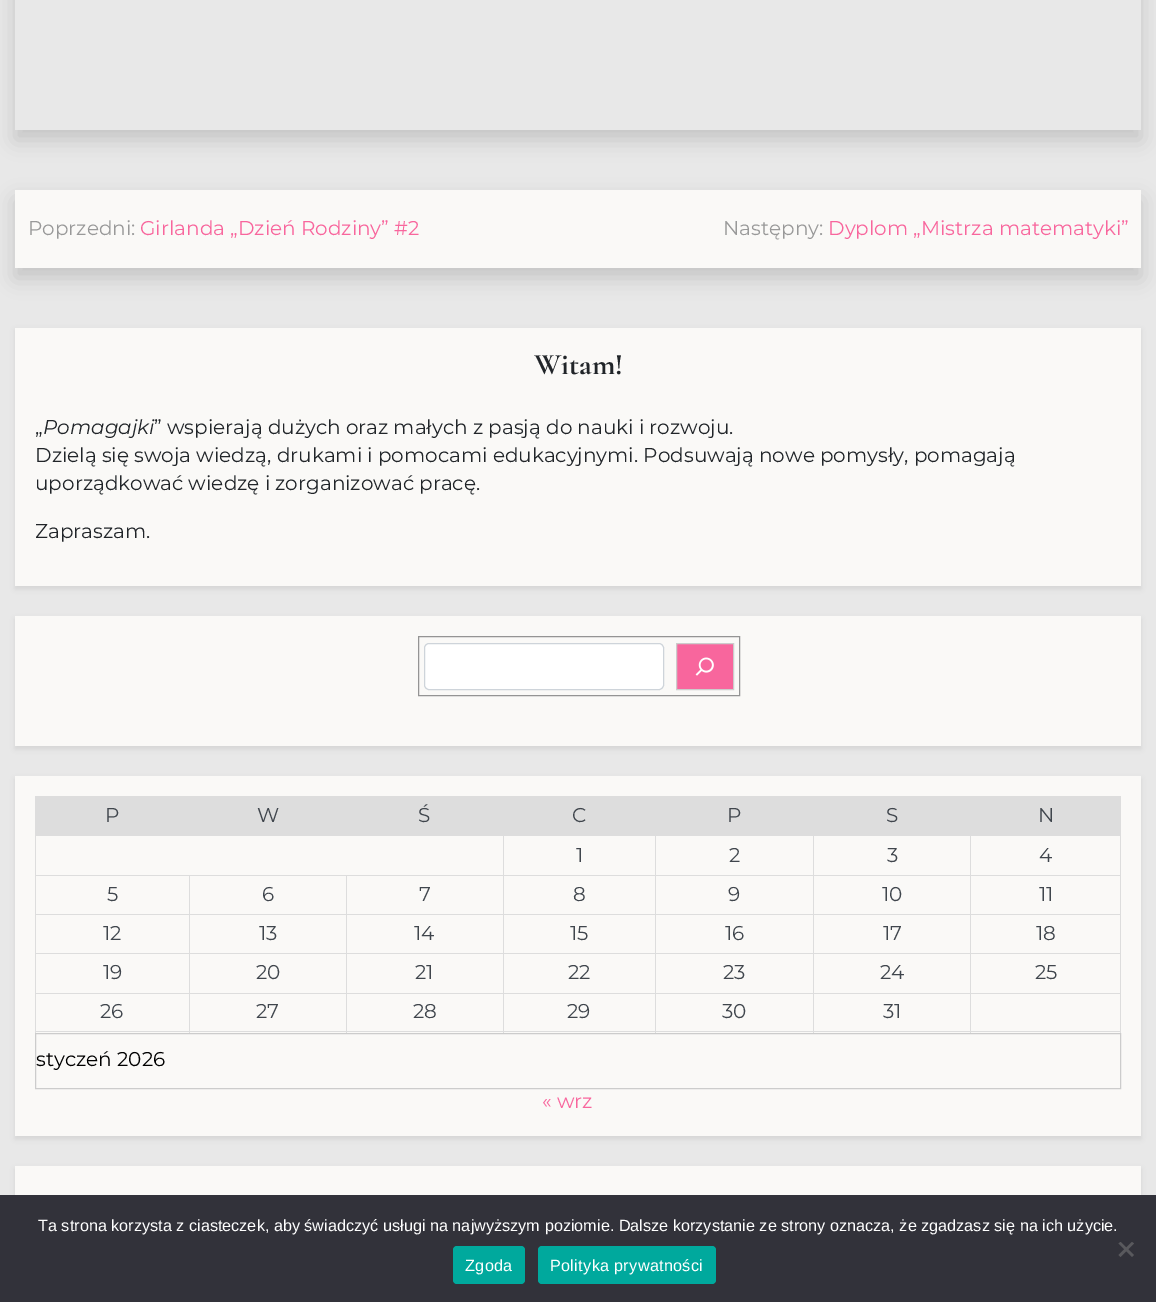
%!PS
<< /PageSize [1156 1302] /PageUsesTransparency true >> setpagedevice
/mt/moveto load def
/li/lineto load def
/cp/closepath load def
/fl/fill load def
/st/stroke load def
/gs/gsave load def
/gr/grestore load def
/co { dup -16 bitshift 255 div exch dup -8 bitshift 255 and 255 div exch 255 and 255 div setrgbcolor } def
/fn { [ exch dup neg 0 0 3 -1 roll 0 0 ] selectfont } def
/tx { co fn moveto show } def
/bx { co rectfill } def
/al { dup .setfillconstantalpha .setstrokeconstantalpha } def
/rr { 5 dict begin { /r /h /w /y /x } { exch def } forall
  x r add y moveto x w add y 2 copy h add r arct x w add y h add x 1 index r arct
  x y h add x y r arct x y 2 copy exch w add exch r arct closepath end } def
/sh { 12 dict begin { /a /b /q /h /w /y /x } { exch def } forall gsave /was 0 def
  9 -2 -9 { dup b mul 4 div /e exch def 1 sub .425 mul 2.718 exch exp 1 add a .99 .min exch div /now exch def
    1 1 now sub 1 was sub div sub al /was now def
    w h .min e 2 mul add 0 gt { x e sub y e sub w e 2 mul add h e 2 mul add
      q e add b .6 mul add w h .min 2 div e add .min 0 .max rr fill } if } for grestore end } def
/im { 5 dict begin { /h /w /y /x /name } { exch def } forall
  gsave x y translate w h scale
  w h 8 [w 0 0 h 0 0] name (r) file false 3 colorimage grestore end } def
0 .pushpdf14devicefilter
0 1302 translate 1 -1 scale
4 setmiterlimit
0 0 1156 1302 16#E8E8E8 bx
gs
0 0 mt 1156 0 li 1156 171 li 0 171 li cp 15 -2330 mt 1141 -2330 li 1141 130 li 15 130 li cp eoclip newpath
16#000000 co
15 -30 1126 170 0 10 .15 sh
gr
15 190 1126 78 16#FAF9F7 bx
gs
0 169 mt 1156 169 li 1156 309 li 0 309 li cp 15 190 mt 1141 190 li 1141 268 li 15 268 li cp eoclip newpath
16#000000 co
15 200 1126 78 0 10 .15 sh
gr
16#000000 co
15 330 1126 259 0 2.5 .07 sh
15 328 1126 258 16#FAF9F7 bx
16#000000 co
15 619 1126 130 0 2.5 .07 sh
15 616 1126 130 16#FAF9F7 bx
16#949494 co
418.5 636.5 321 59 rectstroke
16#FFFFFF co
424.5 643.5 239 46 4.5 rr gs fl gr
16#CED4DA co
st
16#F8669D co
676.5 643.5 mt 733.5 643.5 li 733.5 689.5 li 676.5 689.5 li cp gs fl gr
16#CCCCCC co
st
(media/1.raw) 695 657 19 19 im
16#000000 co
15 779 1126 360 0 2.5 .07 sh
15 776 1126 360 16#FAF9F7 bx
36 797 153 38 16#DDDDDD bx
189 796 314 39 16#DDDDDD bx
35 796 155 1 16#DDDDDD bx
503 796 618 40 16#DDDDDD bx
970 875 151 1 16#DDDDDD bx
970 914 151 1 16#DDDDDD bx
970 953 151 1 16#DDDDDD bx
970 993 151 1 16#DDDDDD bx
1120 993 1 40 16#DDDDDD bx
970 1031 151 1 16#DDDDDD bx
970 993 1 40 16#DDDDDD bx
813 993 158 1 16#DDDDDD bx
970 953 1 41 16#DDDDDD bx
813 953 158 1 16#DDDDDD bx
970 914 1 40 16#DDDDDD bx
813 914 158 1 16#DDDDDD bx
970 875 1 40 16#DDDDDD bx
813 875 158 1 16#DDDDDD bx
813 1031 158 1 16#DDDDDD bx
813 993 1 40 16#DDDDDD bx
655 993 159 1 16#DDDDDD bx
813 953 1 41 16#DDDDDD bx
655 953 159 1 16#DDDDDD bx
813 914 1 40 16#DDDDDD bx
655 914 159 1 16#DDDDDD bx
813 875 1 40 16#DDDDDD bx
655 875 159 1 16#DDDDDD bx
655 1031 159 1 16#DDDDDD bx
655 993 1 40 16#DDDDDD bx
503 993 153 1 16#DDDDDD bx
655 953 1 41 16#DDDDDD bx
503 953 153 1 16#DDDDDD bx
655 914 1 40 16#DDDDDD bx
503 914 153 1 16#DDDDDD bx
655 875 1 40 16#DDDDDD bx
503 875 153 1 16#DDDDDD bx
503 1031 153 1 16#DDDDDD bx
503 993 1 40 16#DDDDDD bx
346 993 158 1 16#DDDDDD bx
503 953 1 41 16#DDDDDD bx
346 953 158 1 16#DDDDDD bx
503 914 1 40 16#DDDDDD bx
346 914 158 1 16#DDDDDD bx
503 875 1 40 16#DDDDDD bx
346 875 158 1 16#DDDDDD bx
503 835 1 41 16#DDDDDD bx
35 835 469 1 16#DDDDDD bx
346 1031 158 1 16#DDDDDD bx
346 993 1 40 16#DDDDDD bx
189 993 159 1 16#DDDDDD bx
346 953 1 41 16#DDDDDD bx
189 953 159 1 16#DDDDDD bx
346 914 1 40 16#DDDDDD bx
189 914 159 1 16#DDDDDD bx
346 875 1 40 16#DDDDDD bx
189 875 159 1 16#DDDDDD bx
189 1031 159 1 16#DDDDDD bx
189 993 1 40 16#DDDDDD bx
35 993 155 1 16#DDDDDD bx
189 953 1 41 16#DDDDDD bx
35 953 155 1 16#DDDDDD bx
189 914 1 40 16#DDDDDD bx
35 914 155 1 16#DDDDDD bx
189 875 1 40 16#DDDDDD bx
35 875 155 1 16#DDDDDD bx
35 1031 155 1 16#DDDDDD bx
35 993 1 40 16#DDDDDD bx
35 953 1 41 16#DDDDDD bx
35 914 1 40 16#DDDDDD bx
35 875 1 40 16#DDDDDD bx
35 835 1 41 16#DDDDDD bx
35 796 1 40 16#DDDDDD bx
655 835 1 41 16#DDDDDD bx
813 835 1 41 16#DDDDDD bx
970 835 1 41 16#DDDDDD bx
1120 953 1 41 16#DDDDDD bx
1120 914 1 40 16#DDDDDD bx
1120 835 1 80 16#DDDDDD bx
16#CCCCCC co
35.5 1033.5 1085 55 rectstroke
16#000000 co
15 1169 1126 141 0 2.5 .07 sh
15 1166 1126 29 16#FAF9F7 bx
0 1195 1156 107 16#32323A bx
16#59595D co
1132 1242 mt 1134 1243.5 li 1120.5 1257 li 1118.5 1255 li cp fl
1118.5 1243.5 mt 1120.5 1242 li 1134 1255 li 1132 1257 li cp fl
16#00A99D co
453 1246 72 38 4 rr fl
538 1246 178 38 4 rr fl
(Poprzedni:) 28 235 /Montserrat-Regular 20 16#999999 tx
(Girlanda „Dzień Rodziny” #2) 140 235 /Montserrat-Regular 20 16#F8669D tx
(Następny:) 723 235 /Montserrat-Regular 20 16#999999 tx
(Dyplom „Mistrza matematyki”) 828 235 /Montserrat-Regular 20 16#F8669D tx
(Witam!) 534 374 /CormorantGaramond-Bold 30 16#212529 tx
(„) 35 434 /Montserrat-Regular 20 16#212529 tx
(Pomagajki) 43 434 /Montserrat-Italic 20 16#212529 tx
(” wspierają dużych oraz małych z pasją do nauki i rozwoju.) 154 434 /Montserrat-Regular 20 16#212529 tx
(Dzielą się swoja wiedzą, drukami i pomocami edukacyjnymi. Podsuwają nowe pomysły, pomagają) 35 462 /Montserrat-Regular 20 16#212529 tx
(uporządkować wiedzę i zorganizować pracę.) 35 490 /Montserrat-Regular 20 16#212529 tx
(Zapraszam.) 35 538 /Montserrat-Regular 20 16#212529 tx
(P) 105 822 /Montserrat-Regular 20 16#40464D tx
(W) 257 822 /Montserrat-Regular 20 16#40464D tx
(Ś) 418 822 /Montserrat-Regular 20 16#40464D tx
(C) 572 822 /Montserrat-Regular 20 16#40464D tx
(P) 727 822 /Montserrat-Regular 20 16#40464D tx
(S) 886 822 /Montserrat-Regular 20 16#40464D tx
(N) 1038 822 /Montserrat-Regular 20 16#40464D tx
(1) 576 862 /Montserrat-Regular 20 16#40464D tx
(2) 729 862 /Montserrat-Regular 20 16#40464D tx
(3) 887 862 /Montserrat-Regular 20 16#40464D tx
(4) 1039 862 /Montserrat-Regular 20 16#40464D tx
(5) 107 901 /Montserrat-Regular 20 16#40464D tx
(6) 262 901 /Montserrat-Regular 20 16#40464D tx
(7) 419 901 /Montserrat-Regular 20 16#40464D tx
(8) 573 901 /Montserrat-Regular 20 16#40464D tx
(9) 728 901 /Montserrat-Regular 20 16#40464D tx
(10) 882 901 /Montserrat-Regular 20 16#40464D tx
(11) 1039 901 /Montserrat-Regular 20 16#40464D tx
(12) 103 940 /Montserrat-Regular 20 16#40464D tx
(13) 259 940 /Montserrat-Regular 20 16#40464D tx
(14) 414 940 /Montserrat-Regular 20 16#40464D tx
(15) 570 940 /Montserrat-Regular 20 16#40464D tx
(16) 725 940 /Montserrat-Regular 20 16#40464D tx
(17) 883 940 /Montserrat-Regular 20 16#40464D tx
(18) 1036 940 /Montserrat-Regular 20 16#40464D tx
(19) 103 979 /Montserrat-Regular 20 16#40464D tx
(20) 256 979 /Montserrat-Regular 20 16#40464D tx
(21) 415 979 /Montserrat-Regular 20 16#40464D tx
(22) 568 979 /Montserrat-Regular 20 16#40464D tx
(23) 723 979 /Montserrat-Regular 20 16#40464D tx
(24) 880 979 /Montserrat-Regular 20 16#40464D tx
(25) 1035 979 /Montserrat-Regular 20 16#40464D tx
(26) 100 1018 /Montserrat-Regular 20 16#40464D tx
(27) 256 1018 /Montserrat-Regular 20 16#40464D tx
(28) 413 1018 /Montserrat-Regular 20 16#40464D tx
(29) 567 1018 /Montserrat-Regular 20 16#40464D tx
(30) 722 1018 /Montserrat-Regular 20 16#40464D tx
(31) 883 1018 /Montserrat-Regular 20 16#40464D tx
(styczeń 2026) 36 1066 /Montserrat-Regular 20 16#000000 tx
(« wrz) 542 1108 /Montserrat-Regular 20 16#F8669D tx
(Ta strona korzysta z ciasteczek, aby świadczyć usługi na najwyższym poziomie. Dalsze korzystanie ze strony oznacza, że zgadzasz się na ich użycie.) 38 1231 /LiberationSans-Regular 16.25 16#FFFFFF tx
465 1271 mt .3 0 (Zgoda) ashow
550 1271 mt .3 0 (Polityka prywatności) ashow
.poppdf14devicefilter showpage
